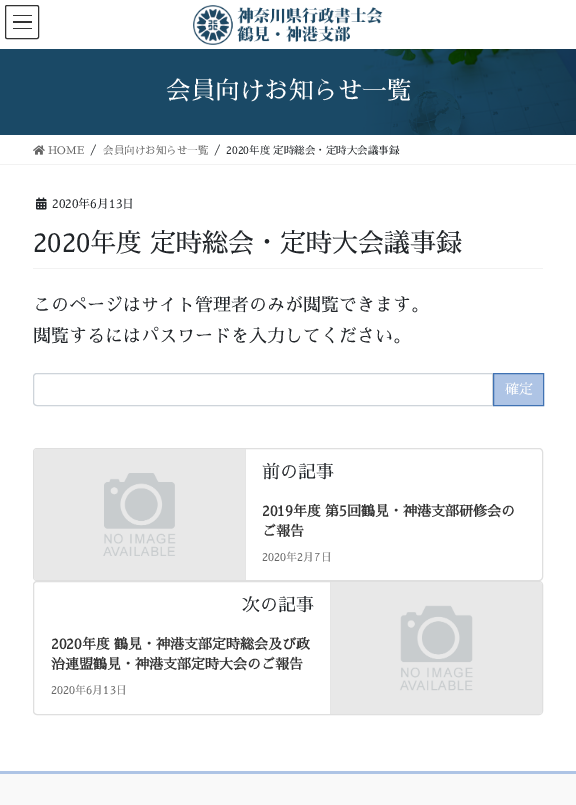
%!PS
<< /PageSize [576 805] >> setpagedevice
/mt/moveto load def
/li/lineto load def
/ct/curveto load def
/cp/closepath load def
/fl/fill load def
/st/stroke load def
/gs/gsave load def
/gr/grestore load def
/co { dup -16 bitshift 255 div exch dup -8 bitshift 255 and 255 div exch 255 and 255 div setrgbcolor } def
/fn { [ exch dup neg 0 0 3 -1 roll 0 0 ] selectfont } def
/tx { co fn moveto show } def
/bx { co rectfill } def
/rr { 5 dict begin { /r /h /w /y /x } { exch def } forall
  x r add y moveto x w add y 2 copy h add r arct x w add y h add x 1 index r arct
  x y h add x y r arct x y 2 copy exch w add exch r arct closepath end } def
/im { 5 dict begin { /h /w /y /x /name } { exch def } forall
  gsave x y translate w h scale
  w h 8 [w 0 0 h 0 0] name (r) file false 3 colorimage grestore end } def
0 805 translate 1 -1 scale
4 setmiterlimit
0 0 576 805 16#FFFFFF bx
13 15 19 1 16#333333 bx
13 21 19 2 16#333333 bx
13 28 19 1 16#333333 bx
5.5 5.5 33 33 1.5 rr st
(media/1.raw) 193 5 190 40 im
(media/2.raw) 0 49 576 86 im
0 164 576 1 16#F2F2F2 bx
(media/3.raw) 33 145 12 10 im
33 268 510 1 16#F2F2F2 bx
(media/4.raw) 36 197 11 13 im
16#CED4DA co
37 373.5 mt 492.5 373.5 li 492.5 405.5 li 37 405.5 li 35 405.5 33.5 404 33.5 402 ct 33.5 377 li 33.5 375 35 373.5 37 373.5 ct cp st
16#AEC4E5 co
493.5 373.5 mt 543.5 373.5 li 543.5 405.5 li 493.5 405.5 li cp gs fl gr
16#4072B3 co
st
16#DFDFDF co
33.5 448.5 509 132 3.5 rr st
(media/5.raw) 34 449 211 131 im
245 449 1 131 16#E5E5E5 bx
16#DFDFDF co
33.5 581.5 509 133 3.5 rr st
(media/6.raw) 331 582 211 132 im
330 582 1 132 16#E5E5E5 bx
0 774 576 31 16#F9F9F9 bx
0 771 576 3 16#AEC4E5 bx
(会員向けお知らせ一覧) 166 99 /SawarabiMincho-Regular 24.5 16#FFFFFF tx
(HOME) 48 154 /SawarabiMincho-Regular 10.5 16#666666 tx
(/) 90 154 /SawarabiMincho-Regular 12 16#212529 tx
(会員向けお知らせ一覧) 103 154 /SawarabiMincho-Regular 10.5 16#666666 tx
(/) 214 154 /SawarabiMincho-Regular 12 16#212529 tx
(2020年度 定時総会・定時大会議事録) 226 154 /SawarabiMincho-Regular 10.5 16#212529 tx
(2020年6月13日) 52 208 /SawarabiMincho-Regular 12 16#212529 tx
(2020年度 定時総会・定時大会議事録) 33 252 /SawarabiMincho-Regular 26 16#212529 tx
(このページはサイト管理者のみが閲覧できます。) 33 311 /SawarabiMincho-Regular 18 16#212529 tx
(閲覧するにはパスワードを入力してください。) 33 342 /SawarabiMincho-Regular 18 16#212529 tx
(確定) 505 394 /SawarabiMincho-Regular 14 16#FFFFFF tx
(前の記事) 262 478 /SawarabiMincho-Regular 18 16#212529 tx
(2019年度 第5回鶴見・神港支部研修会の) 262 516 /SawarabiMincho-Bold 14 16#333333 tx
(ご報告) 262 536 /SawarabiMincho-Bold 14 16#333333 tx
(2020年2月7日) 262 561 /SawarabiMincho-Regular 11 16#666666 tx
(次の記事) 242 611 /SawarabiMincho-Regular 18 16#212529 tx
(2020年度 鶴見・神港支部定時総会及び政) 51 649 /SawarabiMincho-Bold 14 16#333333 tx
(治連盟鶴見・神港支部定時大会のご報告) 51 669 /SawarabiMincho-Bold 14 16#333333 tx
(2020年6月13日) 51 694 /SawarabiMincho-Regular 11 16#666666 tx
showpage
